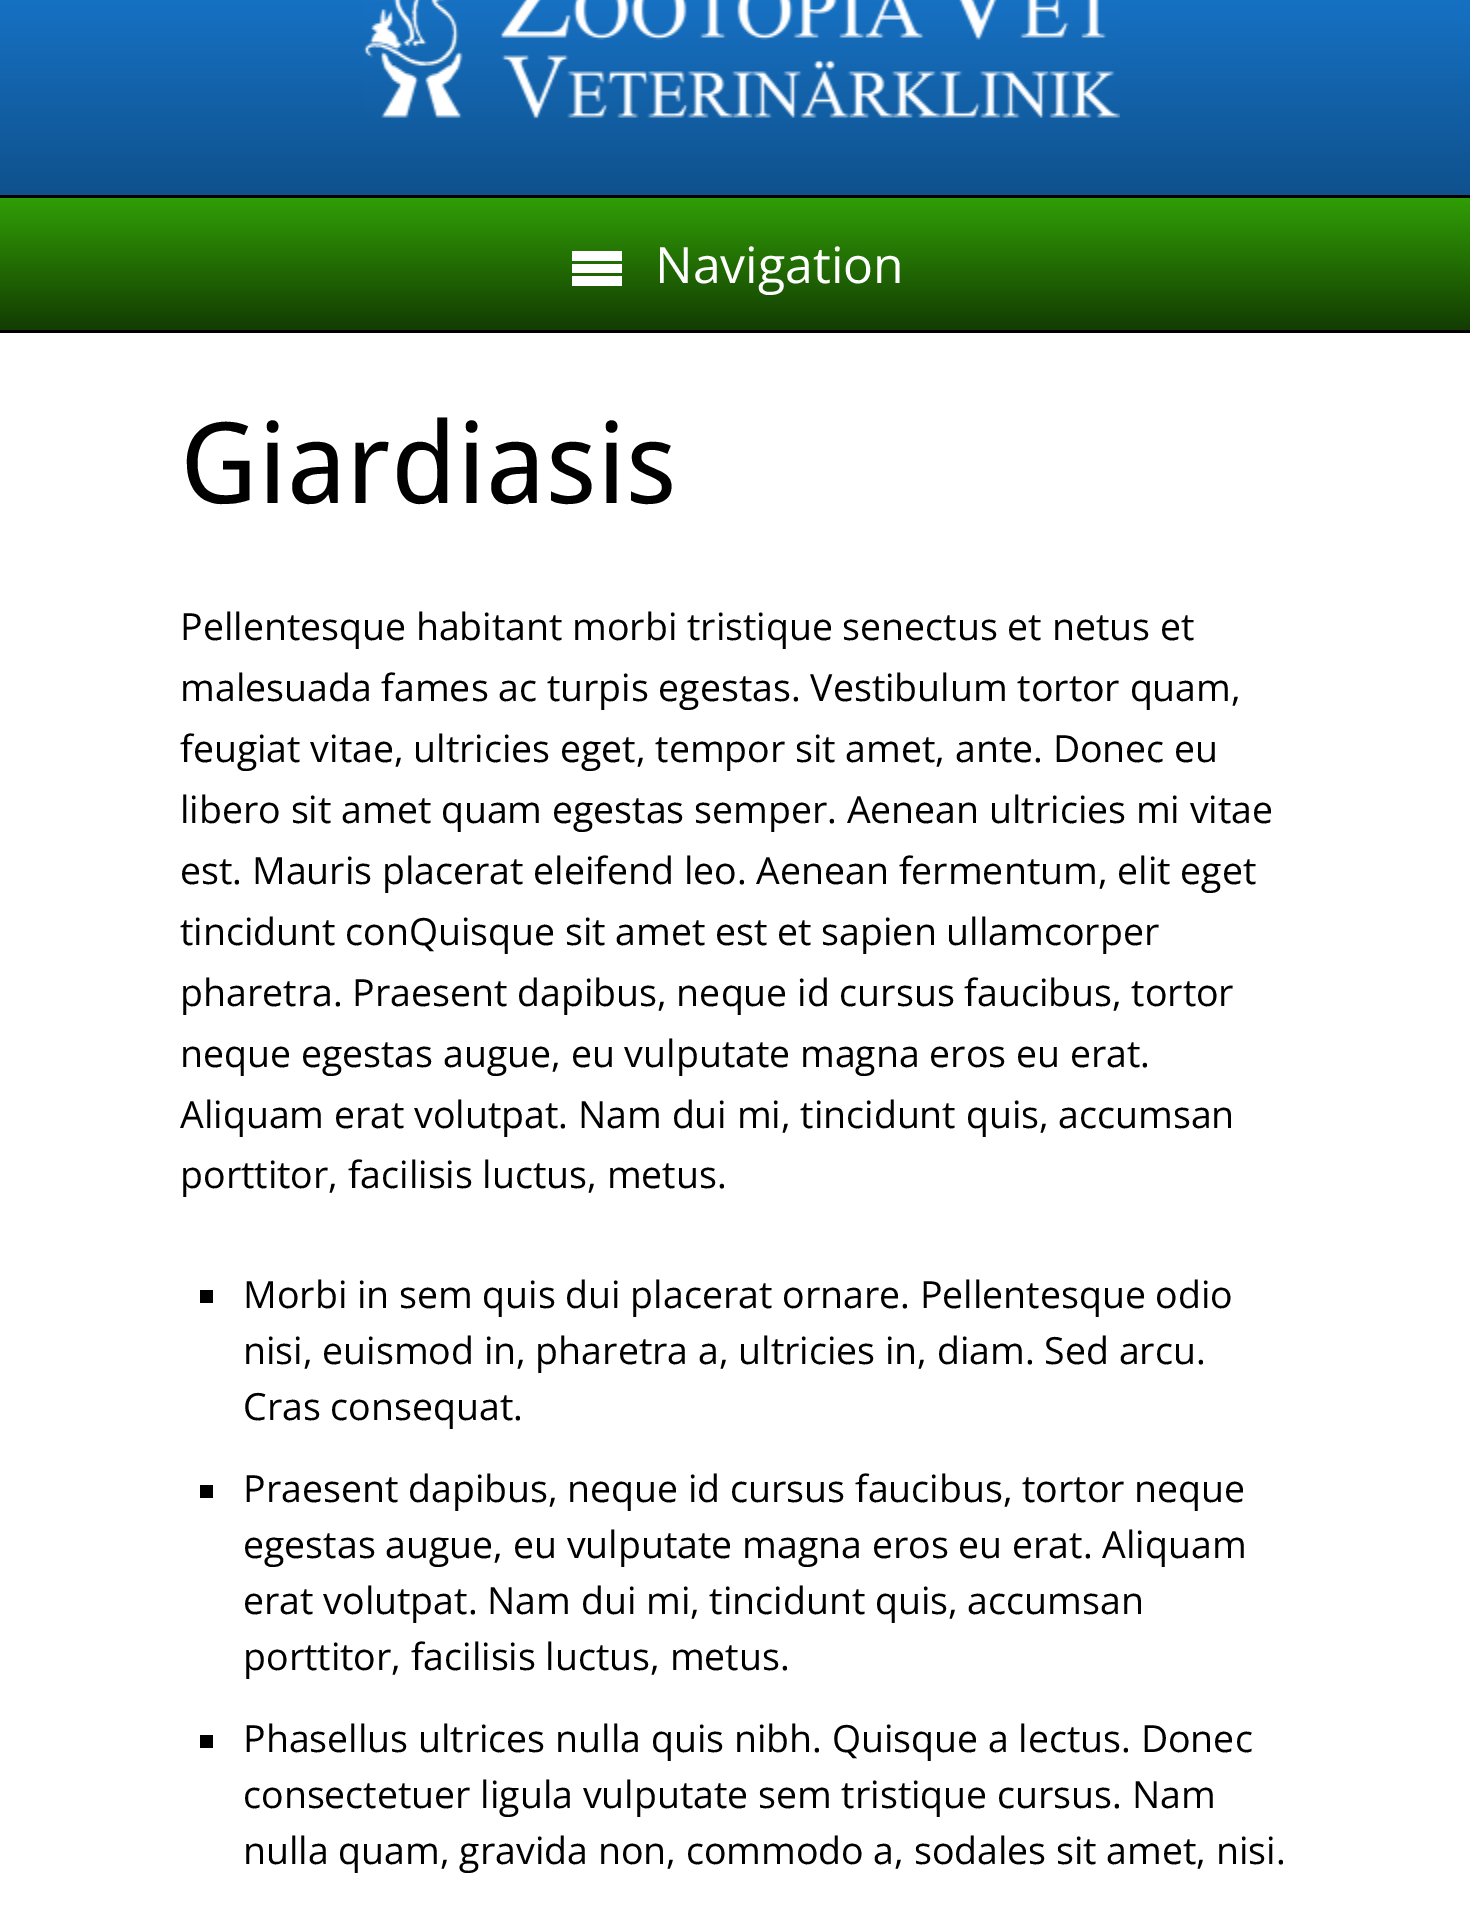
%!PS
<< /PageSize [1470 1920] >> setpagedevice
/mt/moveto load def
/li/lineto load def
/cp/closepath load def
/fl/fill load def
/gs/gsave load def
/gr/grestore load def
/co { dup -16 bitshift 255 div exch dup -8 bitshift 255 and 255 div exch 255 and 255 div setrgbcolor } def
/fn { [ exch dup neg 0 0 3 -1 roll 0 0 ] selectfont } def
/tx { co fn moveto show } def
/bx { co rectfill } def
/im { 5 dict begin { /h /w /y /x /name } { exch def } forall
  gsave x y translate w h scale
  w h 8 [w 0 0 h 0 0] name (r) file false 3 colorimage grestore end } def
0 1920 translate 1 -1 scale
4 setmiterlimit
0 0 1470 1920 16#FFFFFF bx
gs 0 0 mt 1470 0 li 1470 195 li 0 195 li cp clip newpath
<< /ShadingType 2 /ColorSpace /DeviceRGB /Coords [0 -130 0 195] /Extend [true true] /Function << /FunctionType 2 /Domain [0 1] /C0 [.106 .525 .906] /C1 [.059 .318 .553] /N 1 >> >> shfill gr
(media/1.raw) 363 0 757 119 im
gs 0 198 mt 1470 198 li 1470 330 li 0 330 li cp clip newpath
<< /ShadingType 2 /ColorSpace /DeviceRGB /Coords [0 198 0 330] /Extend [true true] /Function << /FunctionType 2 /Domain [0 1] /C0 [.192 .62 .024] /C1 [.075 .235 .008] /N 1 >> >> shfill gr
0 195 1470 3 16#000000 bx
0 330 1470 3 16#000000 bx
16#FFFFFF co
572 251 mt 622 251 li 622 261 li 572 261 li cp 572 276 mt 622 276 li 622 286 li 572 286 li cp 572 264 mt 622 264 li 622 273 li 572 273 li cp fl
200 1290 13 13 16#000000 bx
200 1485 13 13 16#000000 bx
200 1735 13 13 16#000000 bx
(Navigation) 655 283 /OpenSans-Regular 50 16#FFFFFF tx
(Giardiasis) 180 503 /DroidSans-Regular 112.5 16#000000 tx
(Pellentesque habitant morbi tristique senectus et netus et) 180 640 /OpenSans-Regular 37.5 16#000000 tx
(malesuada fames ac turpis egestas. Vestibulum tortor quam,) 180 701 /OpenSans-Regular 37.5 16#000000 tx
(feugiat vitae, ultricies eget, tempor sit amet, ante. Donec eu) 180 762 /OpenSans-Regular 37.5 16#000000 tx
(libero sit amet quam egestas semper. Aenean ultricies mi vitae) 180 823 /OpenSans-Regular 37.5 16#000000 tx
(est. Mauris placerat eleifend leo. Aenean fermentum, elit eget) 180 884 /OpenSans-Regular 37.5 16#000000 tx
(tincidunt conQuisque sit amet est et sapien ullamcorper) 180 945 /OpenSans-Regular 37.5 16#000000 tx
(pharetra. Praesent dapibus, neque id cursus faucibus, tortor) 180 1006 /OpenSans-Regular 37.5 16#000000 tx
(neque egestas augue, eu vulputate magna eros eu erat.) 180 1067 /OpenSans-Regular 37.5 16#000000 tx
(Aliquam erat volutpat. Nam dui mi, tincidunt quis, accumsan) 180 1128 /OpenSans-Regular 37.5 16#000000 tx
(porttitor, facilisis luctus, metus.) 180 1188 /OpenSans-Regular 37.5 16#000000 tx
(Morbi in sem quis dui placerat ornare. Pellentesque odio) 243 1308 /OpenSans-Regular 37.5 16#000000 tx
(nisi, euismod in, pharetra a, ultricies in, diam. Sed arcu.) 243 1364 /OpenSans-Regular 37.5 16#000000 tx
(Cras consequat.) 243 1420 /OpenSans-Regular 37.5 16#000000 tx
(Praesent dapibus, neque id cursus faucibus, tortor neque) 243 1502 /OpenSans-Regular 37.5 16#000000 tx
(egestas augue, eu vulputate magna eros eu erat. Aliquam) 243 1558 /OpenSans-Regular 37.5 16#000000 tx
(erat volutpat. Nam dui mi, tincidunt quis, accumsan) 243 1614 /OpenSans-Regular 37.5 16#000000 tx
(porttitor, facilisis luctus, metus.) 243 1670 /OpenSans-Regular 37.5 16#000000 tx
(Phasellus ultrices nulla quis nibh. Quisque a lectus. Donec) 243 1752 /OpenSans-Regular 37.5 16#000000 tx
(consectetuer ligula vulputate sem tristique cursus. Nam) 243 1808 /OpenSans-Regular 37.5 16#000000 tx
(nulla quam, gravida non, commodo a, sodales sit amet, nisi.) 243 1864 /OpenSans-Regular 37.5 16#000000 tx
showpage
